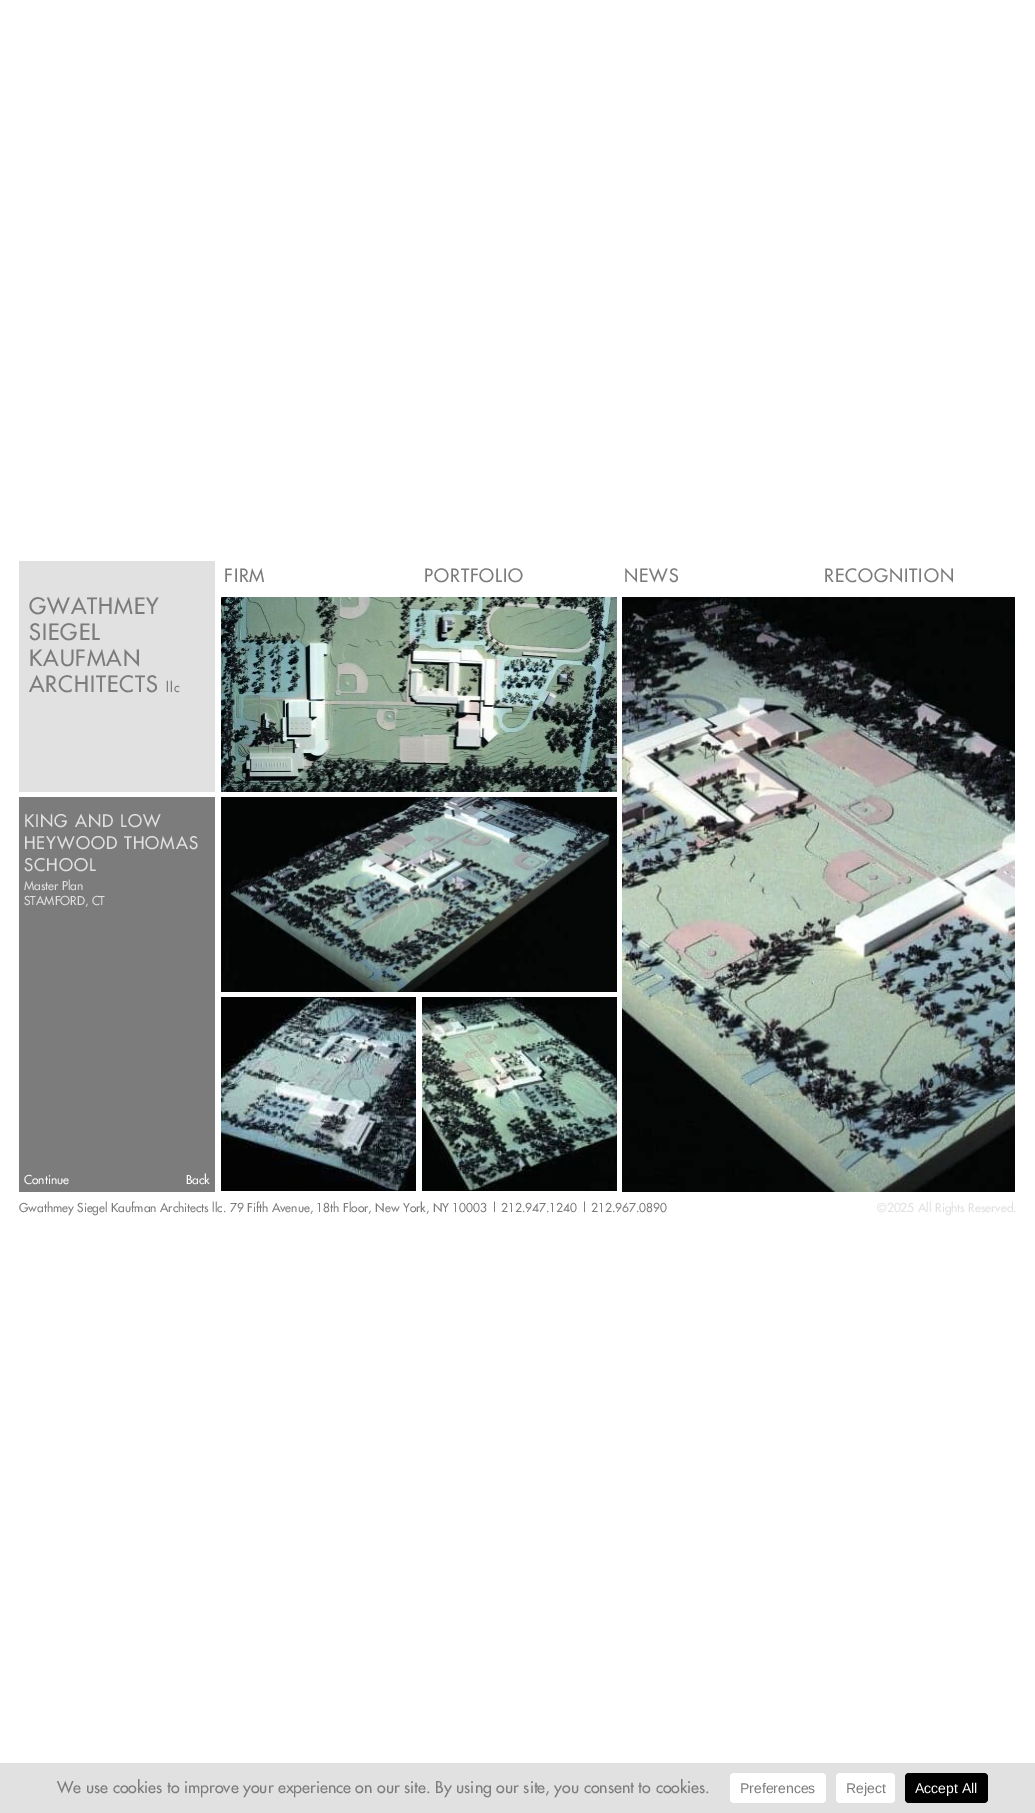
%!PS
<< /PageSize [1035 1813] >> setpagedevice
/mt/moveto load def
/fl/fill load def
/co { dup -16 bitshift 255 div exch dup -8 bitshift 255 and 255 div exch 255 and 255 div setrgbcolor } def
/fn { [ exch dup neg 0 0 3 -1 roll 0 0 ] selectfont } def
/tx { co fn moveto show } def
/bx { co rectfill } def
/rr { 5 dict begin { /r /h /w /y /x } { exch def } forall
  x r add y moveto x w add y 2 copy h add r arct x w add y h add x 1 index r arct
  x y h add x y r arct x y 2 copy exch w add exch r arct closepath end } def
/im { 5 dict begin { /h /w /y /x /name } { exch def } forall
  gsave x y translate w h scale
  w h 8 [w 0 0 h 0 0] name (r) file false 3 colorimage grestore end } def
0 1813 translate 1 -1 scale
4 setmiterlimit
0 0 1035 1813 16#FFFFFF bx
(media/1.raw) 221 597 396 195 im
(media/2.raw) 622 597 393 595 im
(media/3.raw) 221 797 396 195 im
(media/4.raw) 221 997 195 194 im
(media/5.raw) 422 997 195 194 im
19 561 196 231 16#E1E1E1 bx
19 797 196 395 16#7C7C7C bx
0 1763 1035 50 16#E1E1E1 bx
16#FFFFFF co
730 1773 96 30 4 rr fl
836 1773 59 30 4 rr fl
16#000000 co
905 1773 83 30 4 rr fl
/Futura-Regular 18 fn
16#7C7C7C co
224 582 mt 1 0 (FIRM) ashow
424 582 mt 1 0 (PORTFOLIO) ashow
624 582 mt 1 0 (NEWS) ashow
824 582 mt 1 0 (RECOGNITION) ashow
/Futura-Regular 22 fn
29 614 mt 1 0 (GWATHMEY) ashow
29 640 mt 1 0 (SIEGEL) ashow
29 666 mt 1 0 (KAUFMAN) ashow
29 692 mt 1 0 (ARCHITECTS) ashow
/Futura-Regular 13 fn
166 692 mt 1 0 (llc) ashow
/Futura-Regular 17 fn
16#E0E0E0 co
24 827 mt 1 0 (KING AND LOW) ashow
24 849 mt 1 0 (HEYWOOD THOMAS) ashow
24 871 mt 1 0 (SCHOOL) ashow
(Master Plan) 24 890 /Futura-Regular 12 16#E0E0E0 tx
(STAMFORD, CT) 24 905 /Futura-Regular 12 16#E0E0E0 tx
(Continue) 24 1184 /Futura-Regular 12 16#FFFFFF tx
(Back) 186 1184 /Futura-Regular 12 16#FFFFFF tx
(Gwathmey Siegel Kaufman Architects llc. 79 Fifth Avenue, 18th Floor, New York, NY 10003 | 212.947.1240 | 212.967.0890) 19 1212 /Futura-Regular 12 16#7C7C7C tx
(©2025 All Rights Reserved.) 877 1212 /Futura-Regular 12 16#E0E0E0 tx
(We use cookies to improve your experience on our site. By using our site, you consent to cookies.) 57 1793 /Futura-Regular 16 16#7C7C7C tx
(Preferences) 740 1793 /LiberationSans-Regular 14 16#7C7C7C tx
(Reject) 846 1793 /LiberationSans-Regular 14 16#7C7C7C tx
(Accept All) 915 1793 /LiberationSans-Regular 14 16#FFFFFF tx
showpage
